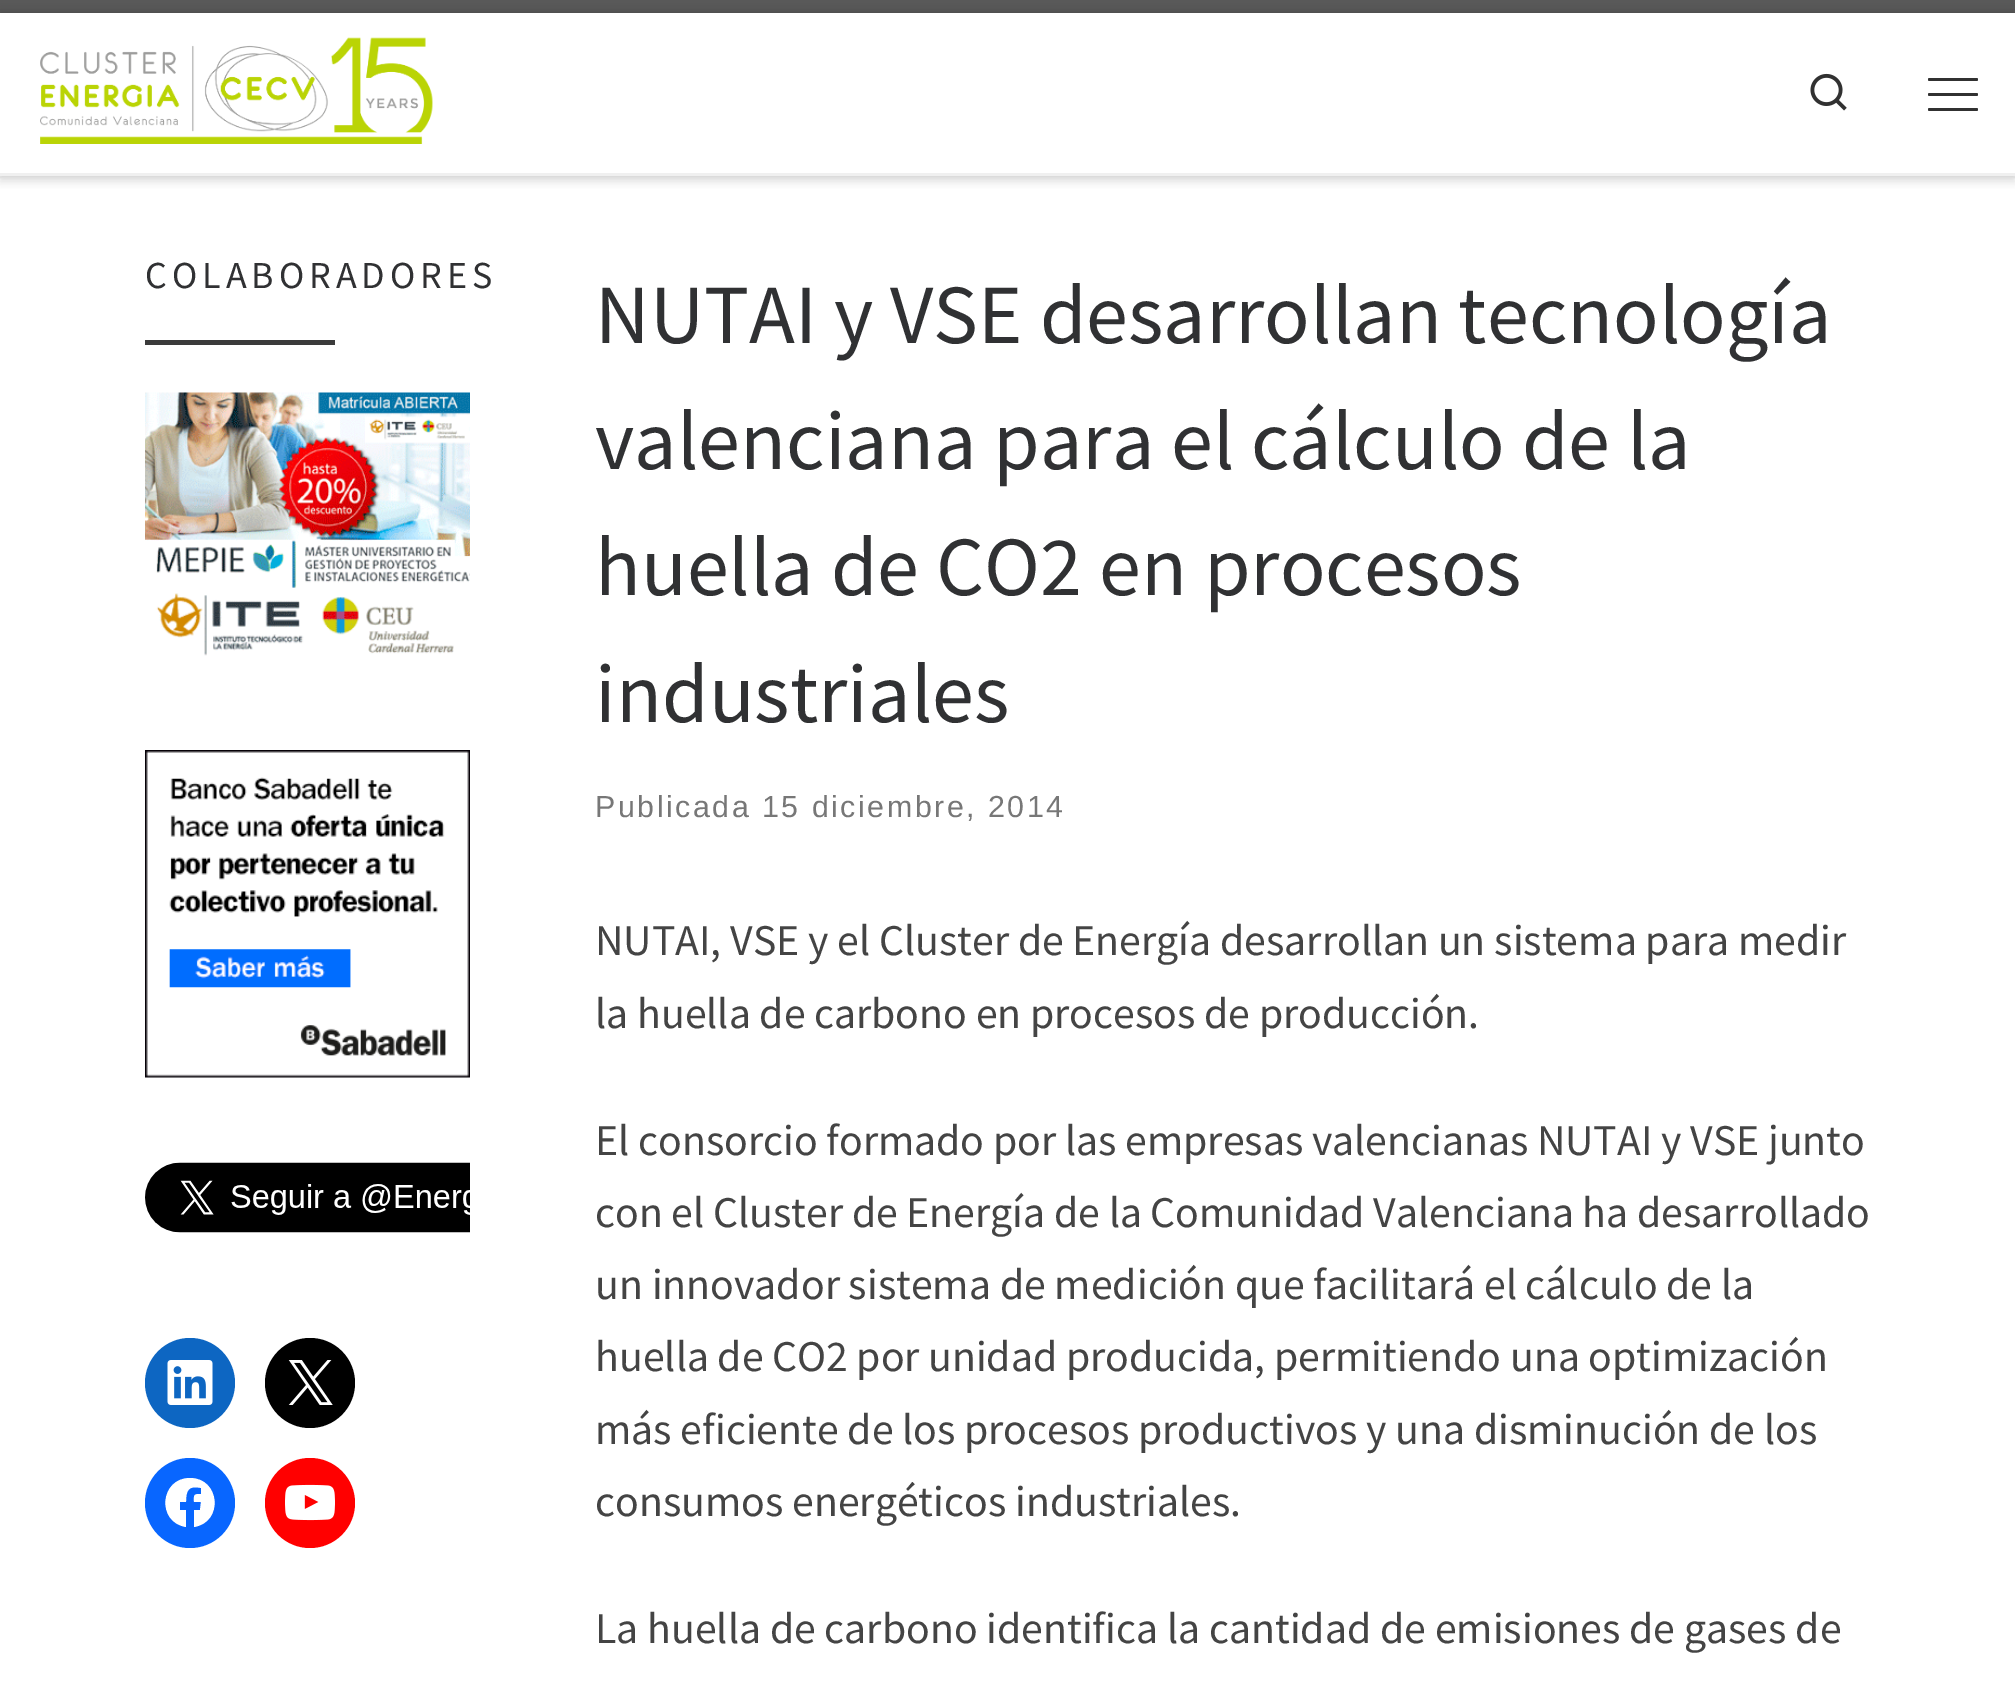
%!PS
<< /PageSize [2015 1690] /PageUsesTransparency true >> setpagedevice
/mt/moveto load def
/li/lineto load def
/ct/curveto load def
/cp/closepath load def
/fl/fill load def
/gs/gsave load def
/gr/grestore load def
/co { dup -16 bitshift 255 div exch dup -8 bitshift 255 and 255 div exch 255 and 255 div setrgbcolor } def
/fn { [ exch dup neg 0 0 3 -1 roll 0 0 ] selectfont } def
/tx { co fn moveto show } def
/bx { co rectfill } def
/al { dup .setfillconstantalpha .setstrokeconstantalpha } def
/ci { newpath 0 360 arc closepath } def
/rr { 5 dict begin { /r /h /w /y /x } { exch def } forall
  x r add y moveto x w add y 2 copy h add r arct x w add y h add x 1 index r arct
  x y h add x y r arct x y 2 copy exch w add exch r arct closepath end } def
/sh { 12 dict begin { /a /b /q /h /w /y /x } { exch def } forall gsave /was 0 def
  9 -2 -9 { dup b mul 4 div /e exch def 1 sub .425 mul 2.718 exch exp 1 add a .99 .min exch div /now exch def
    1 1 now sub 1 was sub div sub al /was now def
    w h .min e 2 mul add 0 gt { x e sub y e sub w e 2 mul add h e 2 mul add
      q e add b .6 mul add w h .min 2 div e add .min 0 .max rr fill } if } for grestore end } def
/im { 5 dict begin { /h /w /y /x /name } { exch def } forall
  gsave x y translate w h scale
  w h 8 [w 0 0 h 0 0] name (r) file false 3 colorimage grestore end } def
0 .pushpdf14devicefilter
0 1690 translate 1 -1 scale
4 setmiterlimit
0 0 2015 1690 16#FFFFFF bx
16#666666 co
0 5 2015 178 0 2.5 .08 sh
0 13 2015 160 16#FFFFFF bx
0 0 2015 13 16#5A5A5A bx
0 176 2015 2 16#EFEFEF bx
gs
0 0 mt 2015 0 li 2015 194 li 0 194 li cp 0 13 mt 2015 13 li 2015 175 li 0 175 li cp eoclip newpath
16#000000 co
0 13 2015 162 0 6 .2 sh
gr
(media/1.raw) 40 37 393 107 im
(media/2.raw) 1810 73 37 38 im
16#313131 co
1928 78 50 3 1.5 rr fl
1928 93 50 3 1.5 rr fl
1928 108 50 3 1.5 rr fl
0 173 2015 3 16#F0F0F0 bx
145 340 190 5 16#3B3B3B bx
(media/3.raw) 145 392 325 264 im
(media/4.raw) 145 750 325 328 im
(media/5.raw) 145 1162 325 71 im
16#0D66C2 co
190 1383 45 ci fl
(media/6.raw) 167 1360 46 45 im
16#000000 co
310 1383 45 ci fl
(media/7.raw) 288 1360 45 45 im
16#0866FF co
190 1503 45 ci fl
16#FFFFFF co
190 1478 mt 160 1478 156 1522 186 1527 ct 186 1510 li 180 1510 li 180 1502 li 186 1502 li 186 1491 188 1485 201 1488 ct 201 1494 li 193 1494 194 1495 194 1502 ct 201 1502 li 200 1510 li 194 1510 li 194 1527 li 224 1522 220 1478 190 1478 ct cp fl
16#FF0000 co
310 1503 45 ci fl
(media/8.raw) 285 1484 50 37 im
/SourceSansPro-Regular 38.1 fn
16#303133 co
145 288 mt 5 0 (COLABORADORES) ashow
(NUTAI y VSE desarrollan tecnología) 595 343 /SourceSansPro-Regular 84.25 16#303133 tx
(valenciana para el cálculo de la) 595 469 /SourceSansPro-Regular 84.25 16#303133 tx
(huella de CO2 en procesos) 595 595 /SourceSansPro-Regular 84.25 16#303133 tx
(industriales) 595 722 /SourceSansPro-Regular 84.25 16#303133 tx
/LiberationSans-Regular 30.4 fn
16#777777 co
595 817 mt 2.5 0 (Publicada 15 diciembre, 2014) ashow
(NUTAI, VSE y el Cluster de Energía desarrollan un sistema para medir) 595 955 /SourceSansPro-Regular 43.8 16#444444 tx
595 1028 mt -.1 0 32 (la huella de carbono en procesos de producción.) widthshow
595 1155 mt -.1 0 32 (El consorcio formado por las empresas valencianas NUTAI y VSE junto) widthshow
595 1227 mt -.1 0 32 (con el Cluster de Energía de la Comunidad Valenciana ha desarrollado) widthshow
(un innovador sistema de medición que facilitará el cálculo de la) 595 1299 /SourceSansPro-Regular 43.8 16#444444 tx
595 1371 mt -.25 0 32 (huella de CO2 por unidad producida, permitiendo una optimización) widthshow
595 1444 mt -.1 0 32 (más eficiente de los procesos productivos y una disminución de los) widthshow
(consumos energéticos industriales.) 595 1516 /SourceSansPro-Regular 43.8 16#444444 tx
(La huella de carbono identifica la cantidad de emisiones de gases de) 595 1643 /SourceSansPro-Regular 43.8 16#444444 tx
.poppdf14devicefilter showpage
